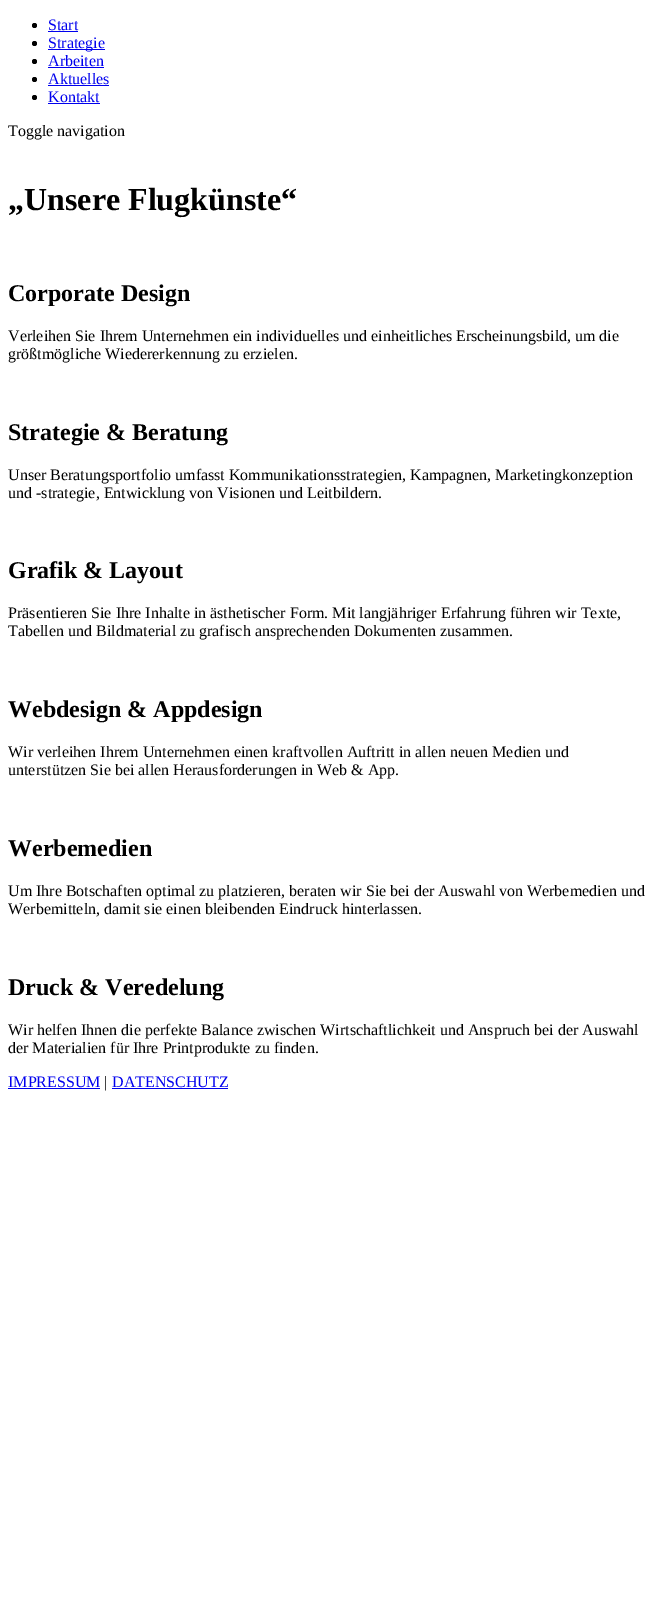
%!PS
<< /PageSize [656 1613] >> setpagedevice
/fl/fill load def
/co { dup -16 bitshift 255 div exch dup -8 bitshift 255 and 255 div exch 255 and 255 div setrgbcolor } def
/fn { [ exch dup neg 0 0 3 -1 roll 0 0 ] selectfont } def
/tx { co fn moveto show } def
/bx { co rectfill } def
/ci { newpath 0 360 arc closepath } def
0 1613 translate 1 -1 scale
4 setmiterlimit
0 0 656 1613 16#FFFFFF bx
16#000000 co
34.5 25.5 2.5 ci fl
48 31 30 1 16#0000EE bx
16#000000 co
34.5 43.5 2.5 ci fl
48 49 57 1 16#0000EE bx
16#000000 co
34.5 61.5 2.5 ci fl
48 67 56 1 16#0000EE bx
16#000000 co
34.5 79.5 2.5 ci fl
48 85 61 1 16#0000EE bx
16#000000 co
34.5 97.5 2.5 ci fl
48 103 52 1 16#0000EE bx
8 1088 92 1 16#0000EE bx
112 1088 116 1 16#0000EE bx
(Start) 48 30 /LiberationSerif-Regular 16 16#0000EE tx
(Strategie) 48 48 /LiberationSerif-Regular 16 16#0000EE tx
(Arbeiten) 48 66 /LiberationSerif-Regular 16 16#0000EE tx
(Aktuelles) 48 84 /LiberationSerif-Regular 16 16#0000EE tx
(Kontakt) 48 102 /LiberationSerif-Regular 16 16#0000EE tx
(Toggle navigation) 8 136 /LiberationSerif-Regular 16 16#000000 tx
(„Unsere Flugkünste“) 8 210 /LiberationSerif-Bold 32 16#000000 tx
(Corporate Design) 8 301 /LiberationSerif-Bold 24 16#000000 tx
(Verleihen Sie Ihrem Unternehmen ein individuelles und einheitliches Erscheinungsbild, um die) 8 341 /LiberationSerif-Regular 16 16#000000 tx
(größtmögliche Wiedererkennung zu erzielen.) 8 359 /LiberationSerif-Regular 16 16#000000 tx
(Strategie & Beratung) 8 440 /LiberationSerif-Bold 24 16#000000 tx
(Unser Beratungsportfolio umfasst Kommunikationsstrategien, Kampagnen, Marketingkonzeption) 8 480 /LiberationSerif-Regular 16 16#000000 tx
(und -strategie, Entwicklung von Visionen und Leitbildern.) 8 498 /LiberationSerif-Regular 16 16#000000 tx
(Grafik & Layout) 8 578 /LiberationSerif-Bold 24 16#000000 tx
(Präsentieren Sie Ihre Inhalte in ästhetischer Form. Mit langjähriger Erfahrung führen wir Texte,) 8 618 /LiberationSerif-Regular 16 16#000000 tx
(Tabellen und Bildmaterial zu grafisch ansprechenden Dokumenten zusammen.) 8 636 /LiberationSerif-Regular 16 16#000000 tx
(Webdesign & Appdesign) 8 717 /LiberationSerif-Bold 24 16#000000 tx
(Wir verleihen Ihrem Unternehmen einen kraftvollen Auftritt in allen neuen Medien und) 8 757 /LiberationSerif-Regular 16 16#000000 tx
(unterstützen Sie bei allen Herausforderungen in Web & App.) 8 775 /LiberationSerif-Regular 16 16#000000 tx
(Werbemedien) 8 856 /LiberationSerif-Bold 24 16#000000 tx
(Um Ihre Botschaften optimal zu platzieren, beraten wir Sie bei der Auswahl von Werbemedien und) 8 896 /LiberationSerif-Regular 16 16#000000 tx
(Werbemitteln, damit sie einen bleibenden Eindruck hinterlassen.) 8 914 /LiberationSerif-Regular 16 16#000000 tx
(Druck & Veredelung) 8 995 /LiberationSerif-Bold 24 16#000000 tx
(Wir helfen Ihnen die perfekte Balance zwischen Wirtschaftlichkeit und Anspruch bei der Auswahl) 8 1035 /LiberationSerif-Regular 16 16#000000 tx
(der Materialien für Ihre Printprodukte zu finden.) 8 1053 /LiberationSerif-Regular 16 16#000000 tx
(IMPRESSUM) 8 1087 /LiberationSerif-Regular 16 16#0000EE tx
(|) 104 1087 /LiberationSerif-Regular 16 16#000000 tx
(DATENSCHUTZ) 112 1087 /LiberationSerif-Regular 16 16#0000EE tx
showpage
